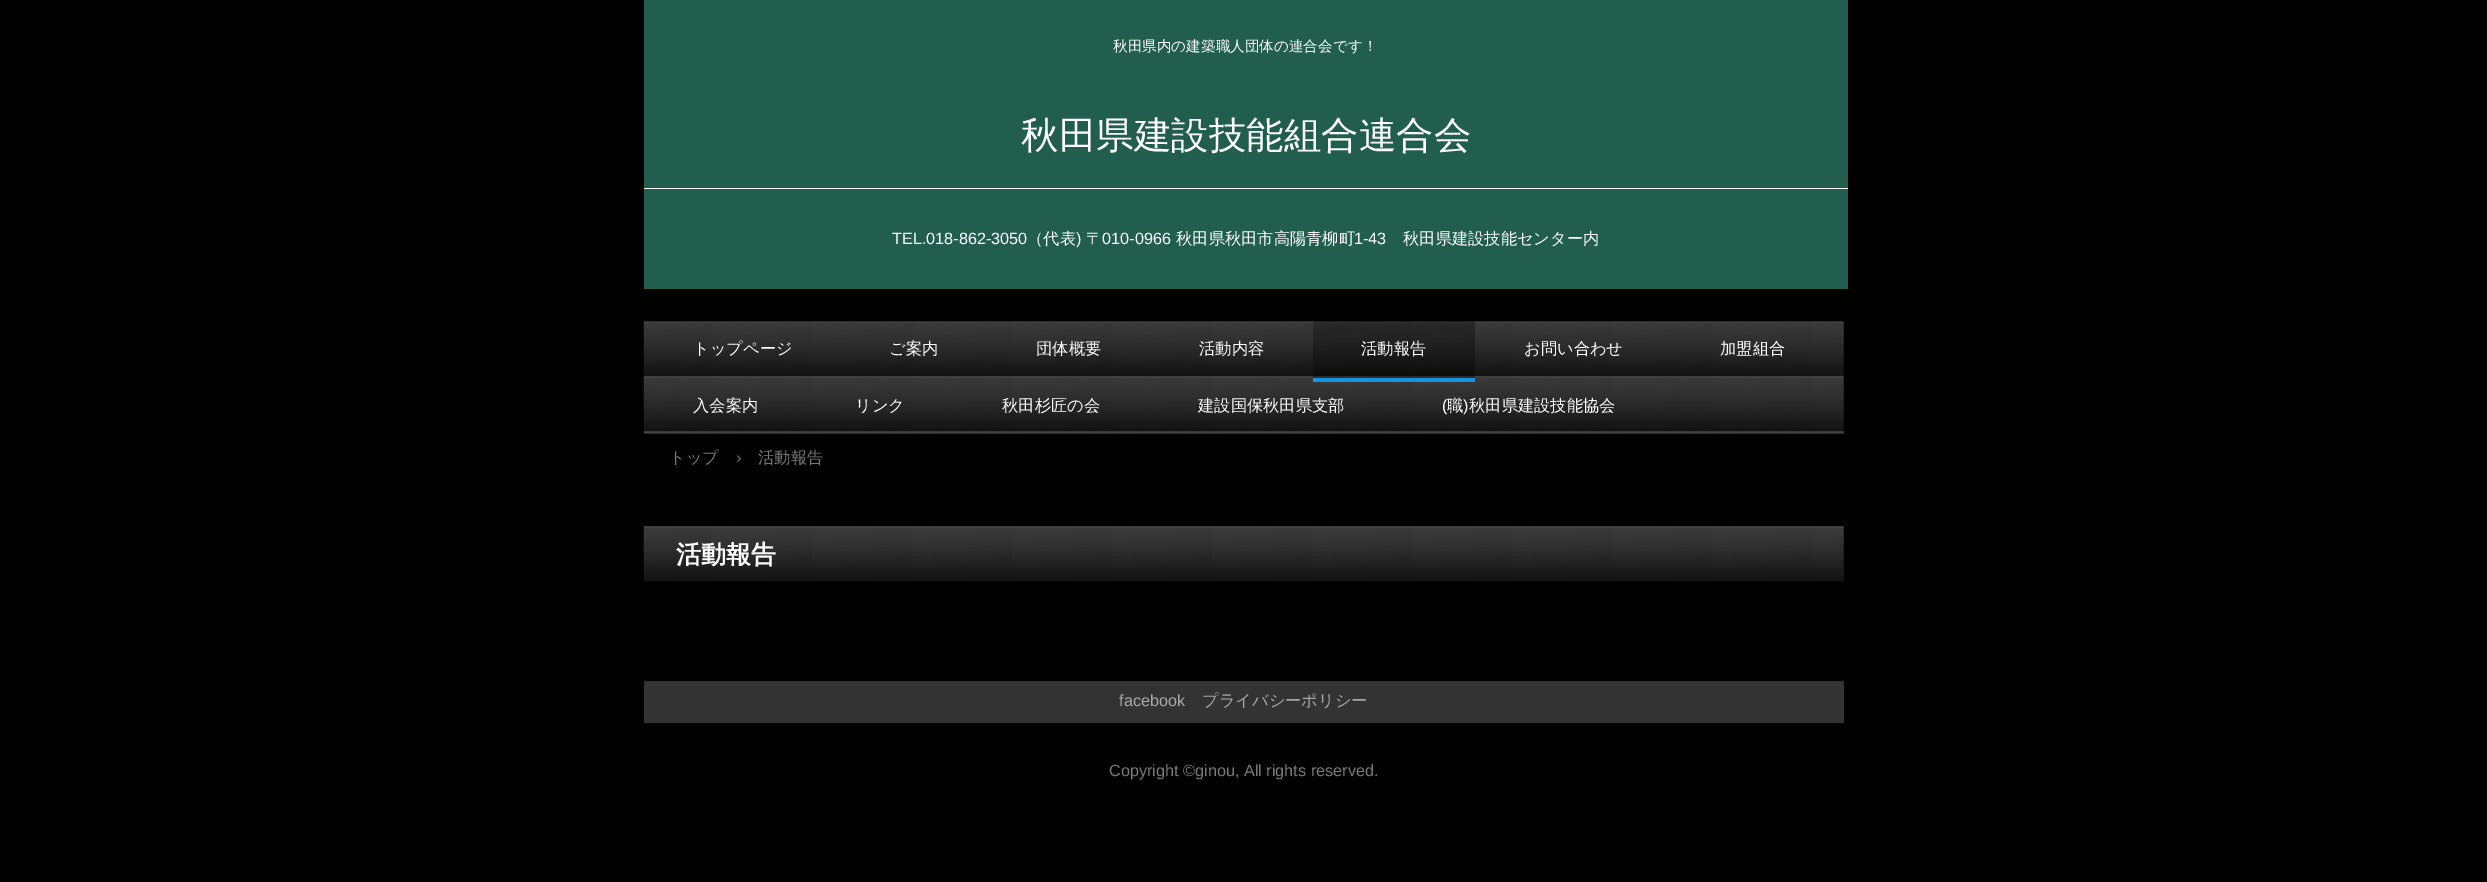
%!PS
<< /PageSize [2487 882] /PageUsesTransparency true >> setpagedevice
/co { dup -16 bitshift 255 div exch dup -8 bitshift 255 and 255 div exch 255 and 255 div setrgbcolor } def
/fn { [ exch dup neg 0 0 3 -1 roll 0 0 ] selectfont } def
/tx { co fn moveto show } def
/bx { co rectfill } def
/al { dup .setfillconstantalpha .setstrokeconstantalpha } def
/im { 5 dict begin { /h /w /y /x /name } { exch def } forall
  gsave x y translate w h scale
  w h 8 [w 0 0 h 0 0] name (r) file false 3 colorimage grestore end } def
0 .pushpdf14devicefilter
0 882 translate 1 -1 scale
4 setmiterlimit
0 0 2487 882 16#000000 bx
644 0 1204 289 16#225E4E bx
644 188 1204 1 16#FFFFFF bx
(media/1.raw) 643 321 1201 113 im
0.3 al
1313 321 162 57 16#000000 bx
1 al
1313 378 162 4 16#1793E3 bx
(media/2.raw) 643 526 1201 56 im
644 681 1200 42 16#333333 bx
(秋田県内の建築職人団体の連合会です！) 1113 51 /WenQuanYiZenHei-Medium 14.6 16#FFFFFF tx
(秋田県建設技能組合連合会) 1021 148 /WenQuanYiZenHei-Medium 37.5 16#FFFFFF tx
(TEL.018-862-3050) 892 244 /LiberationSans-Regular 16.25 16#FFFFFF tx
(（代表) 1027 244 /WenQuanYiZenHei-Medium 16.25 16#FFFFFF tx
(\)) 1076 244 /LiberationSans-Regular 16.25 16#FFFFFF tx
(〒) 1086 244 /WenQuanYiZenHei-Medium 16.25 16#FFFFFF tx
(010-0966) 1102 244 /LiberationSans-Regular 16.25 16#FFFFFF tx
(秋田県秋田市高陽青柳町) 1176 244 /WenQuanYiZenHei-Medium 16.25 16#FFFFFF tx
(1-43) 1354 244 /LiberationSans-Regular 16.25 16#FFFFFF tx
(秋田県建設技能センター内) 1403 244 /WenQuanYiZenHei-Medium 16.25 16#FFFFFF tx
(トップページ) 693 354 /WenQuanYiZenHei-Medium 16.25 16#FFFFFF tx
(ご案内) 889 354 /WenQuanYiZenHei-Medium 16.25 16#FFFFFF tx
(団体概要) 1036 354 /WenQuanYiZenHei-Medium 16.25 16#FFFFFF tx
(活動内容) 1199 354 /WenQuanYiZenHei-Medium 16.25 16#FFFFFF tx
(活動報告) 1361 354 /WenQuanYiZenHei-Medium 16.25 16#FFFFFF tx
(お問い合わせ) 1524 354 /WenQuanYiZenHei-Medium 16.25 16#FFFFFF tx
(加盟組合) 1720 354 /WenQuanYiZenHei-Medium 16.25 16#FFFFFF tx
(入会案内) 693 411 /WenQuanYiZenHei-Medium 16.25 16#FFFFFF tx
(リンク) 855 411 /WenQuanYiZenHei-Medium 16.25 16#FFFFFF tx
(秋田杉匠の会) 1002 411 /WenQuanYiZenHei-Medium 16.25 16#FFFFFF tx
(建設国保秋田県支部) 1198 411 /WenQuanYiZenHei-Medium 16.25 16#FFFFFF tx
(\() 1442 411 /LiberationSans-Regular 16.25 16#FFFFFF tx
(職) 1447 411 /WenQuanYiZenHei-Medium 16.25 16#FFFFFF tx
(\)) 1463 411 /LiberationSans-Regular 16.25 16#FFFFFF tx
(秋田県建設技能協会) 1469 411 /WenQuanYiZenHei-Medium 16.25 16#FFFFFF tx
(トップ) 669 463 /WenQuanYiZenHei-Medium 16.25 16#797979 tx
(›) 736 463 /LiberationSans-Regular 16.25 16#797979 tx
(活動報告) 758 463 /WenQuanYiZenHei-Medium 16.25 16#797979 tx
(活動報告) 676 563 /WenQuanYiZenHei-Bold 25 16#FFFFFF tx
(facebook) 1119 706 /LiberationSans-Regular 16.25 16#AAAAAA tx
(プライバシーポリシー) 1202 706 /WenQuanYiZenHei-Medium 16.25 16#AAAAAA tx
(Copyright ©ginou, All rights reserved.) 1109 776 /LiberationSans-Regular 16.25 16#797979 tx
.poppdf14devicefilter showpage
